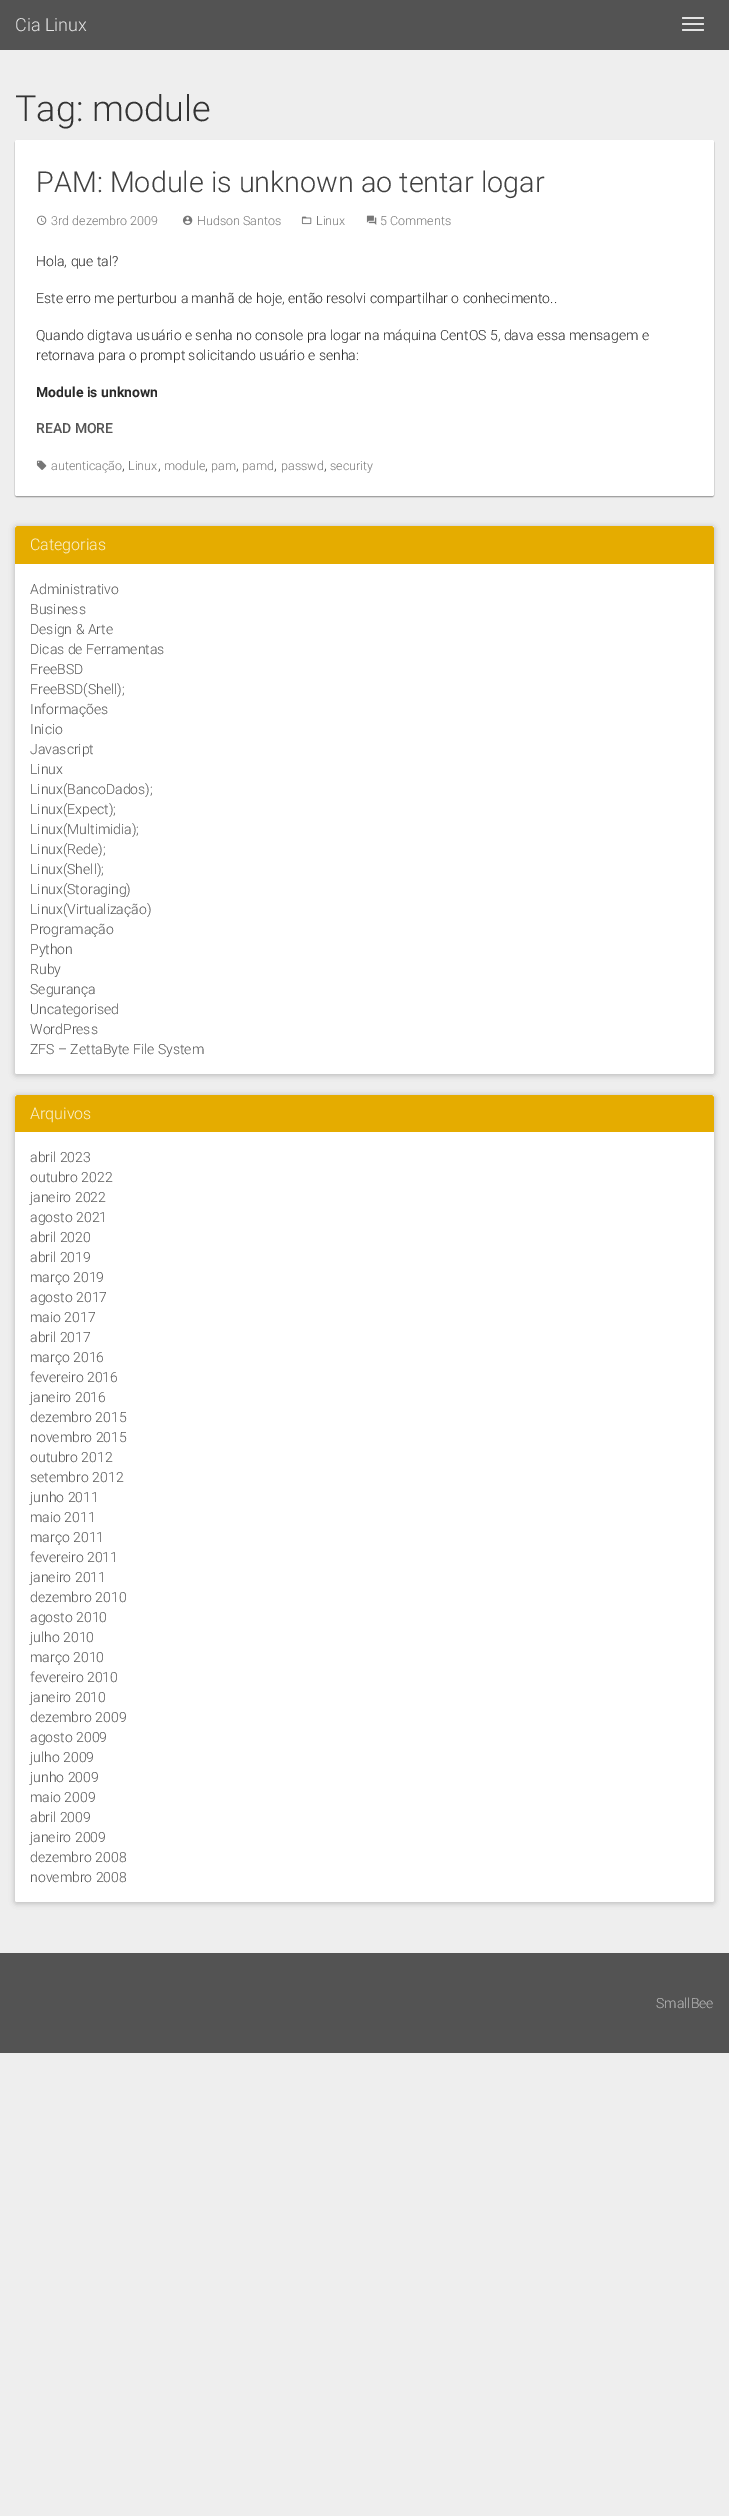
%!PS
<< /PageSize [729 2516] /PageUsesTransparency true >> setpagedevice
/mt/moveto load def
/li/lineto load def
/ct/curveto load def
/cp/closepath load def
/fl/fill load def
/co { dup -16 bitshift 255 div exch dup -8 bitshift 255 and 255 div exch 255 and 255 div setrgbcolor } def
/fn { [ exch dup neg 0 0 3 -1 roll 0 0 ] selectfont } def
/tx { co fn moveto show } def
/bx { co rectfill } def
/al { dup .setfillconstantalpha .setstrokeconstantalpha } def
/rr { 5 dict begin { /r /h /w /y /x } { exch def } forall
  x r add y moveto x w add y 2 copy h add r arct x w add y h add x 1 index r arct
  x y h add x y r arct x y 2 copy exch w add exch r arct closepath end } def
/sh { 12 dict begin { /a /b /q /h /w /y /x } { exch def } forall gsave /was 0 def
  9 -2 -9 { dup b mul 4 div /e exch def 1 sub .425 mul 2.718 exch exp 1 add a .99 .min exch div /now exch def
    1 1 now sub 1 was sub div sub al /was now def
    w h .min e 2 mul add 0 gt { x e sub y e sub w e 2 mul add h e 2 mul add
      q e add b .6 mul add w h .min 2 div e add .min 0 .max rr fill } if } for grestore end } def
/im { 5 dict begin { /h /w /y /x /name } { exch def } forall
  gsave x y translate w h scale
  w h 8 [w 0 0 h 0 0] name (r) file false 3 colorimage grestore end } def
0 .pushpdf14devicefilter
0 2516 translate 1 -1 scale
4 setmiterlimit
0 0 729 2516 16#EEEEEE bx
0 0 729 50 16#535353 bx
16#E3E3E3 co
682 17 22 2 1 rr fl
682 23 22 2 1 rr fl
682 29 22 2 1 rr fl
16#000000 co
15 141 699 356 2 .5 .16 sh
15 141 699 356 2 .5 .23 sh
16#FFFFFF co
15 140 699 356 2 rr fl
(media/1.raw) 36 215 11 10 im
(media/2.raw) 182 215 11 10 im
(media/3.raw) 301 216 11 9 im
(media/4.raw) 366 215 11 10 im
(media/5.raw) 36 460 11 10 im
16#000000 co
15 527 699 548 2 3 .12 sh
15 527 699 548 2 3 .12 sh
16#FFFFFF co
15 526 699 548 2 rr fl
16#E5AC00 co
18 526 mt 711 526 li 712.5 526 714 527.5 714 529 ct 714 564 li 15 564 li 15 529 li 15 527.5 16.5 526 18 526 ct cp fl
16#000000 co
15 1096 699 807 2 3 .12 sh
15 1096 699 807 2 3 .12 sh
16#FFFFFF co
15 1095 699 807 2 rr fl
16#E5AC00 co
18 1095 mt 711 1095 li 712.5 1095 714 1096.5 714 1098 ct 714 1132 li 15 1132 li 15 1098 li 15 1096.5 16.5 1095 18 1095 ct cp fl
0 1953 729 100 16#535353 bx
(Cia Linux) 15 31 /Roboto-Light 18 16#E3E3E3 tx
(Tag: module) 15 121 /Roboto-Light 36 16#333333 tx
(PAM: Module is unknown ao tentar logar) 36 192 /Roboto-Light 28.75 16#404040 tx
(3rd dezembro 2009) 51 225 /Roboto-Light 12.5 16#777777 tx
(Hudson Santos) 197 225 /Roboto-Light 12.5 16#777777 tx
(Linux) 316 225 /Roboto-Light 12.5 16#777777 tx
(5 Comments) 380 225 /Roboto-Light 12.5 16#777777 tx
(Hola, que tal?) 36 266 /Roboto-Light 14 16#292929 tx
(Este erro me perturbou a manhã de hoje, então resolvi compartilhar o conhecimento..) 36 303 /Roboto-Light 14 16#292929 tx
(Quando digtava usuário e senha no console pra logar na máquina CentOS 5, dava essa mensagem e) 36 340 /Roboto-Light 14 16#292929 tx
(retornava para o prompt solicitando usuário e senha:) 36 360 /Roboto-Light 14 16#292929 tx
(Module is unknown) 36 397 /Roboto-Bold 14 16#292929 tx
(READ MORE) 36 433 /Roboto-Medium 14 16#535353 tx
(autenticação) 51 470 /Roboto-Light 12.5 16#777777 tx
(,) 122 470 /Roboto-Light 14 16#292929 tx
(Linux) 128 470 /Roboto-Light 12.5 16#777777 tx
(,) 158 470 /Roboto-Light 14 16#292929 tx
(module) 164 470 /Roboto-Light 12.5 16#777777 tx
(,) 205 470 /Roboto-Light 14 16#292929 tx
(pam) 211 470 /Roboto-Light 12.5 16#777777 tx
(,) 236 470 /Roboto-Light 14 16#292929 tx
(pamd) 242 470 /Roboto-Light 12.5 16#777777 tx
(,) 274 470 /Roboto-Light 14 16#292929 tx
(passwd) 281 470 /Roboto-Light 12.5 16#777777 tx
(,) 324 470 /Roboto-Light 14 16#292929 tx
(security) 330 470 /Roboto-Light 12.5 16#777777 tx
(Categorias) 30 550 /Roboto-Light 16 16#FBF2D6 tx
(Administrativo) 30 594 /Roboto-Light 14 16#535353 tx
(Business) 30 614 /Roboto-Light 14 16#535353 tx
(Design & Arte) 30 634 /Roboto-Light 14 16#535353 tx
(Dicas de Ferramentas) 30 654 /Roboto-Light 14 16#535353 tx
(FreeBSD) 30 674 /Roboto-Light 14 16#535353 tx
(FreeBSD\(Shell\);) 30 694 /Roboto-Light 14 16#535353 tx
(Informações) 30 714 /Roboto-Light 14 16#535353 tx
(Inicio) 30 734 /Roboto-Light 14 16#535353 tx
(Javascript) 30 754 /Roboto-Light 14 16#535353 tx
(Linux) 30 774 /Roboto-Light 14 16#535353 tx
(Linux\(BancoDados\);) 30 794 /Roboto-Light 14 16#535353 tx
(Linux\(Expect\);) 30 814 /Roboto-Light 14 16#535353 tx
(Linux\(Multimidia\);) 30 834 /Roboto-Light 14 16#535353 tx
(Linux\(Rede\);) 30 854 /Roboto-Light 14 16#535353 tx
(Linux\(Shell\);) 30 874 /Roboto-Light 14 16#535353 tx
(Linux\(Storaging\)) 30 894 /Roboto-Light 14 16#535353 tx
(Linux\(Virtualização\)) 30 914 /Roboto-Light 14 16#535353 tx
(Programação) 30 934 /Roboto-Light 14 16#535353 tx
(Python) 30 954 /Roboto-Light 14 16#535353 tx
(Ruby) 30 974 /Roboto-Light 14 16#535353 tx
(Segurança) 30 994 /Roboto-Light 14 16#535353 tx
(Uncategorised) 30 1014 /Roboto-Light 14 16#535353 tx
(WordPress) 30 1034 /Roboto-Light 14 16#535353 tx
(ZFS – ZettaByte File System) 30 1054 /Roboto-Light 14 16#535353 tx
(Arquivos) 30 1119 /Roboto-Light 16 16#FBF2D6 tx
(abril 2023) 30 1162 /Roboto-Light 14 16#535353 tx
(outubro 2022) 30 1182 /Roboto-Light 14 16#535353 tx
(janeiro 2022) 30 1202 /Roboto-Light 14 16#535353 tx
(agosto 2021) 30 1222 /Roboto-Light 14 16#535353 tx
(abril 2020) 30 1242 /Roboto-Light 14 16#535353 tx
(abril 2019) 30 1262 /Roboto-Light 14 16#535353 tx
(março 2019) 30 1282 /Roboto-Light 14 16#535353 tx
(agosto 2017) 30 1302 /Roboto-Light 14 16#535353 tx
(maio 2017) 30 1322 /Roboto-Light 14 16#535353 tx
(abril 2017) 30 1342 /Roboto-Light 14 16#535353 tx
(março 2016) 30 1362 /Roboto-Light 14 16#535353 tx
(fevereiro 2016) 30 1382 /Roboto-Light 14 16#535353 tx
(janeiro 2016) 30 1402 /Roboto-Light 14 16#535353 tx
(dezembro 2015) 30 1422 /Roboto-Light 14 16#535353 tx
(novembro 2015) 30 1442 /Roboto-Light 14 16#535353 tx
(outubro 2012) 30 1462 /Roboto-Light 14 16#535353 tx
(setembro 2012) 30 1482 /Roboto-Light 14 16#535353 tx
(junho 2011) 30 1502 /Roboto-Light 14 16#535353 tx
(maio 2011) 30 1522 /Roboto-Light 14 16#535353 tx
(março 2011) 30 1542 /Roboto-Light 14 16#535353 tx
(fevereiro 2011) 30 1562 /Roboto-Light 14 16#535353 tx
(janeiro 2011) 30 1582 /Roboto-Light 14 16#535353 tx
(dezembro 2010) 30 1602 /Roboto-Light 14 16#535353 tx
(agosto 2010) 30 1622 /Roboto-Light 14 16#535353 tx
(julho 2010) 30 1642 /Roboto-Light 14 16#535353 tx
(março 2010) 30 1662 /Roboto-Light 14 16#535353 tx
(fevereiro 2010) 30 1682 /Roboto-Light 14 16#535353 tx
(janeiro 2010) 30 1702 /Roboto-Light 14 16#535353 tx
(dezembro 2009) 30 1722 /Roboto-Light 14 16#535353 tx
(agosto 2009) 30 1742 /Roboto-Light 14 16#535353 tx
(julho 2009) 30 1762 /Roboto-Light 14 16#535353 tx
(junho 2009) 30 1782 /Roboto-Light 14 16#535353 tx
(maio 2009) 30 1802 /Roboto-Light 14 16#535353 tx
(abril 2009) 30 1822 /Roboto-Light 14 16#535353 tx
(janeiro 2009) 30 1842 /Roboto-Light 14 16#535353 tx
(dezembro 2008) 30 1862 /Roboto-Light 14 16#535353 tx
(novembro 2008) 30 1882 /Roboto-Light 14 16#535353 tx
(SmallBee) 656 2008 /Roboto-Light 14 16#BABABA tx
.poppdf14devicefilter showpage
